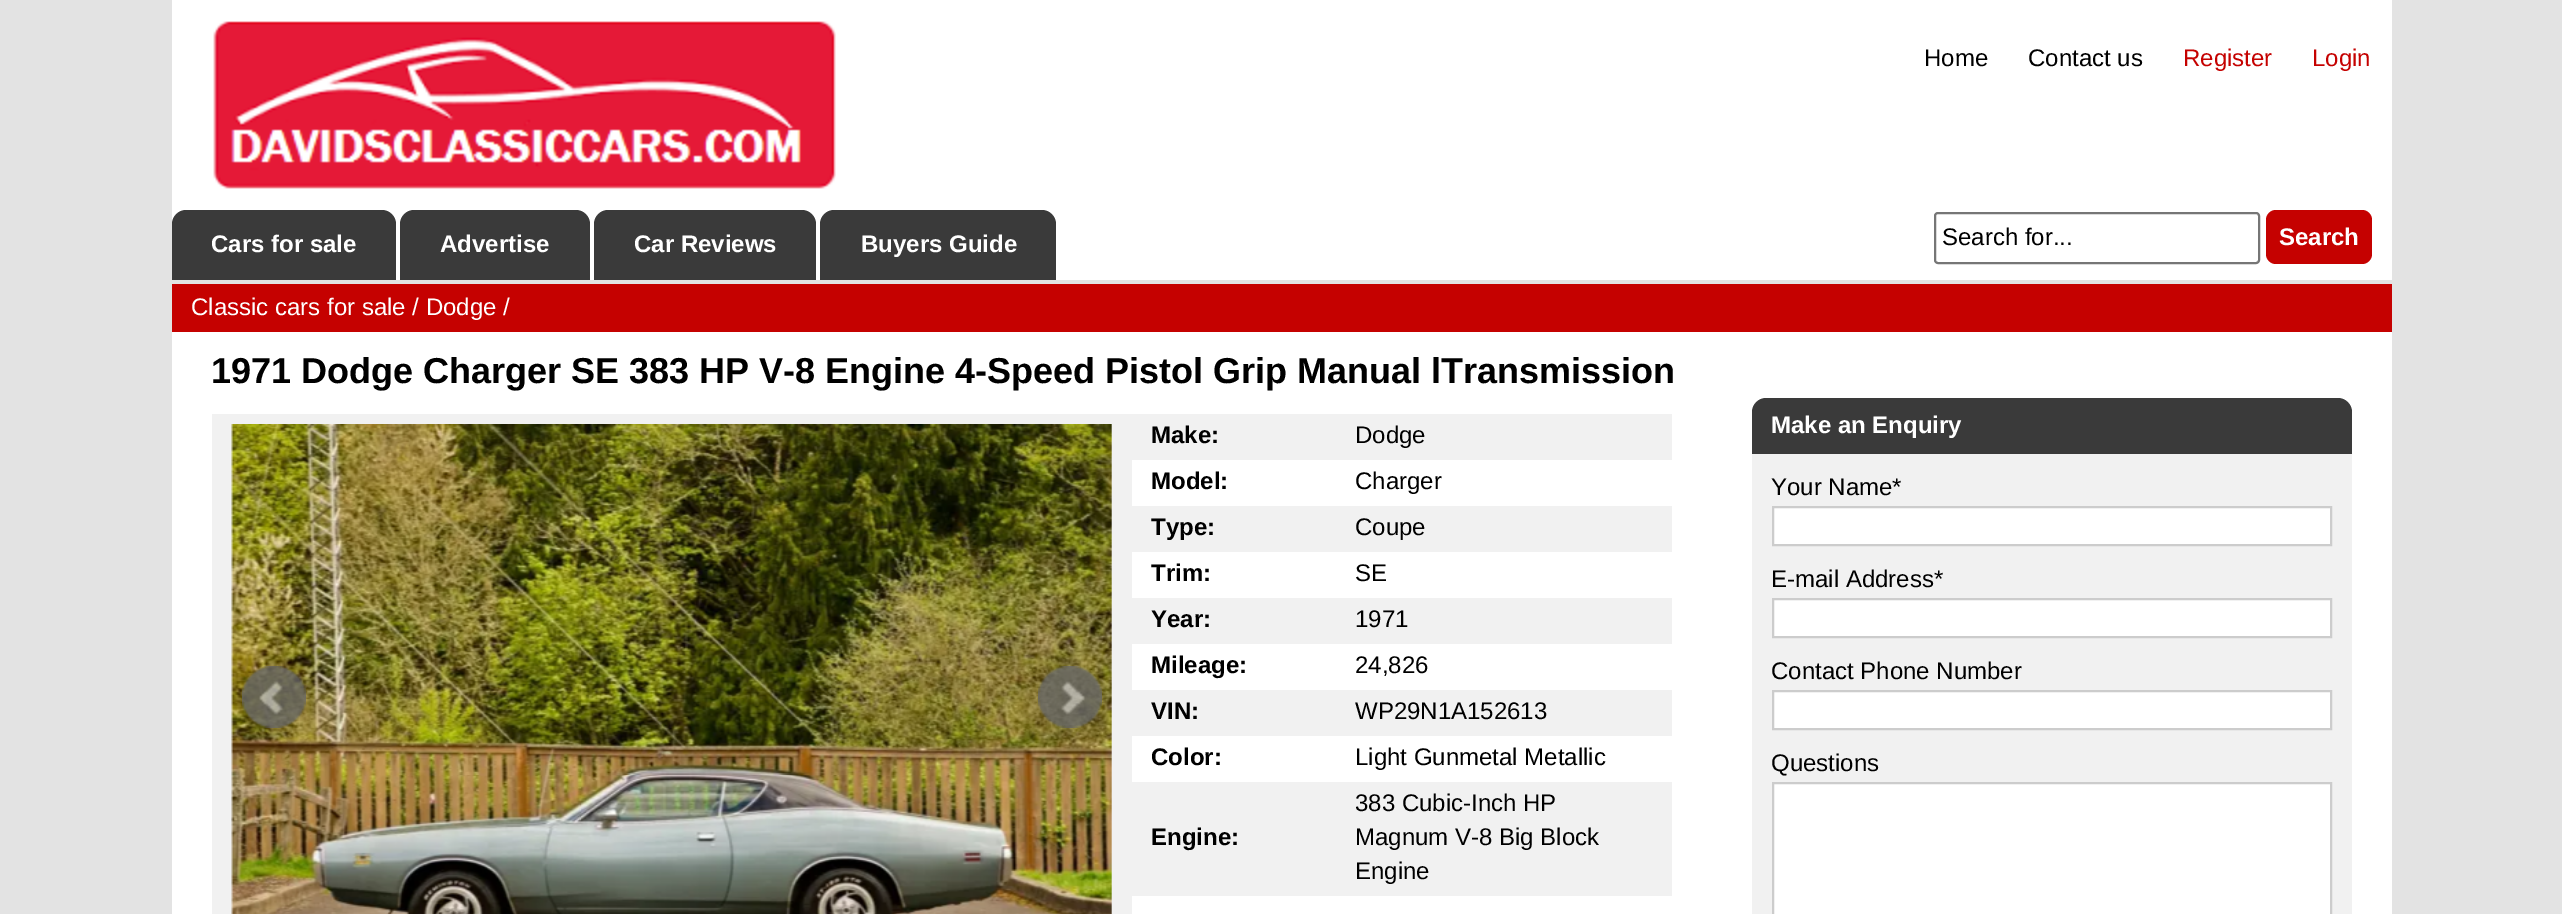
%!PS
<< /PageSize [2562 914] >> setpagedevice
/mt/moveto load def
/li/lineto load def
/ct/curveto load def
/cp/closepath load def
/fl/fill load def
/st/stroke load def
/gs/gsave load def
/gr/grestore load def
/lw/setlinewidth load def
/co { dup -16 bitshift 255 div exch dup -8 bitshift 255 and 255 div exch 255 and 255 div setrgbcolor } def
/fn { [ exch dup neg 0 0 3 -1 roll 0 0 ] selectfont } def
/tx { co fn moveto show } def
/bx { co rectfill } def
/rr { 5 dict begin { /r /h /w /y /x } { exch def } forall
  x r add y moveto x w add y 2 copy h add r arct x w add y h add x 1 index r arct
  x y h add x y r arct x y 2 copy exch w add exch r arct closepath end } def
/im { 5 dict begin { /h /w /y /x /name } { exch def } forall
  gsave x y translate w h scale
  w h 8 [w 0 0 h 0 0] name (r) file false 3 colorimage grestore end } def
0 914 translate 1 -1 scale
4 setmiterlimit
0 0 2562 914 16#E3E3E3 bx
172 0 2220 280 16#FFFFFF bx
(media/1.raw) 213 21 623 168 im
16#3A3A3A co
186 210 mt 382 210 li 389.5 210 396 216.5 396 224 ct 396 280 li 172 280 li 172 224 li 172 216.5 178.5 210 186 210 ct cp fl
414 210 mt 576 210 li 583.5 210 590 216.5 590 224 ct 590 280 li 400 280 li 400 224 li 400 216.5 406.5 210 414 210 ct cp fl
608 210 mt 802 210 li 809.5 210 816 216.5 816 224 ct 816 280 li 594 280 li 594 224 li 594 216.5 600.5 210 608 210 ct cp fl
834 210 mt 1042 210 li 1049.5 210 1056 216.5 1056 224 ct 1056 280 li 820 280 li 820 224 li 820 216.5 826.5 210 834 210 ct cp fl
16#767676 co
2 lw
1935 213 324 50 3 rr st
16#C50100 co
2266 210 106 54 10 rr fl
172 332 2220 582 16#FFFFFF bx
172 284 2220 48 16#C50100 bx
212 414 920 500 16#F1F1F1 bx
(media/2.raw) 231 424 881 490 im
(media/3.raw) 242 666 64 62 im
(media/4.raw) 1038 666 64 62 im
1132 414 540 46 16#F1F1F1 bx
1132 506 540 46 16#F1F1F1 bx
1132 598 540 46 16#F1F1F1 bx
1132 690 540 46 16#F1F1F1 bx
1132 782 540 114 16#F1F1F1 bx
16#3A3A3A co
1766 398 mt 2338 398 li 2345.5 398 2352 404.5 2352 412 ct 2352 454 li 1752 454 li 1752 412 li 1752 404.5 1758.5 398 1766 398 ct cp fl
1752 454 600 460 16#F1F1F1 bx
16#FFFFFF co
1773 507 mt 2331 507 li 2331 545 li 1773 545 li cp gs fl gr
16#CCCCCC co
st
16#FFFFFF co
1773 599 mt 2331 599 li 2331 637 li 1773 637 li cp gs fl gr
16#CCCCCC co
st
16#FFFFFF co
1773 691 mt 2331 691 li 2331 729 li 1773 729 li cp gs fl gr
16#CCCCCC co
st
16#FFFFFF co
1773 783 mt 2331 783 li 2331 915 li 1773 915 li cp gs fl gr
16#CCCCCC co
st
(Home) 1924 66 /LiberationSans-Regular 24 16#000000 tx
(Contact us) 2028 66 /LiberationSans-Regular 24 16#000000 tx
(Register) 2183 66 /LiberationSans-Regular 24 16#C50100 tx
(Login) 2312 66 /LiberationSans-Regular 24 16#C50100 tx
(Cars for sale) 211 252 /LiberationSans-Bold 24 16#FFFFFF tx
(Advertise) 440 252 /LiberationSans-Bold 24 16#FFFFFF tx
(Car Reviews) 634 252 /LiberationSans-Bold 24 16#FFFFFF tx
(Buyers Guide) 861 252 /LiberationSans-Bold 24 16#FFFFFF tx
(Search for...) 1942 245 /LiberationSans-Regular 24 16#000000 tx
(Search) 2279 245 /LiberationSans-Bold 24 16#FFFFFF tx
(Classic cars for sale / Dodge /) 191 315 /LiberationSans-Regular 24 16#FFFFFF tx
(1971 Dodge Charger SE 383 HP V-8 Engine 4-Speed Pistol Grip Manual lTransmission) 211 383 /LiberationSans-Bold 36 16#000000 tx
(Make:) 1151 443 /LiberationSans-Bold 24 16#000000 tx
(Dodge) 1355 443 /LiberationSans-Regular 24 16#000000 tx
(Model:) 1151 489 /LiberationSans-Bold 24 16#000000 tx
(Charger) 1355 489 /LiberationSans-Regular 24 16#000000 tx
(Type:) 1151 535 /LiberationSans-Bold 24 16#000000 tx
(Coupe) 1355 535 /LiberationSans-Regular 24 16#000000 tx
(Trim:) 1151 581 /LiberationSans-Bold 24 16#000000 tx
(SE) 1355 581 /LiberationSans-Regular 24 16#000000 tx
(Year:) 1151 627 /LiberationSans-Bold 24 16#000000 tx
(1971) 1355 627 /LiberationSans-Regular 24 16#000000 tx
(Mileage:) 1151 673 /LiberationSans-Bold 24 16#000000 tx
(24,826) 1355 673 /LiberationSans-Regular 24 16#000000 tx
(VIN:) 1151 719 /LiberationSans-Bold 24 16#000000 tx
(WP29N1A152613) 1355 719 /LiberationSans-Regular 24 16#000000 tx
(Color:) 1151 765 /LiberationSans-Bold 24 16#000000 tx
(Light Gunmetal Metallic) 1355 765 /LiberationSans-Regular 24 16#000000 tx
(Engine:) 1151 845 /LiberationSans-Bold 24 16#000000 tx
(383 Cubic-Inch HP) 1355 811 /LiberationSans-Regular 24 16#000000 tx
(Magnum V-8 Big Block) 1355 845 /LiberationSans-Regular 24 16#000000 tx
(Engine) 1355 879 /LiberationSans-Regular 24 16#000000 tx
(Make an Enquiry) 1771 433 /LiberationSans-Bold 24 16#FFFFFF tx
(Your Name*) 1771 495 /LiberationSans-Regular 24 16#000000 tx
(E-mail Address*) 1771 587 /LiberationSans-Regular 24 16#000000 tx
(Contact Phone Number) 1771 679 /LiberationSans-Regular 24 16#000000 tx
(Questions) 1771 771 /LiberationSans-Regular 24 16#000000 tx
showpage
